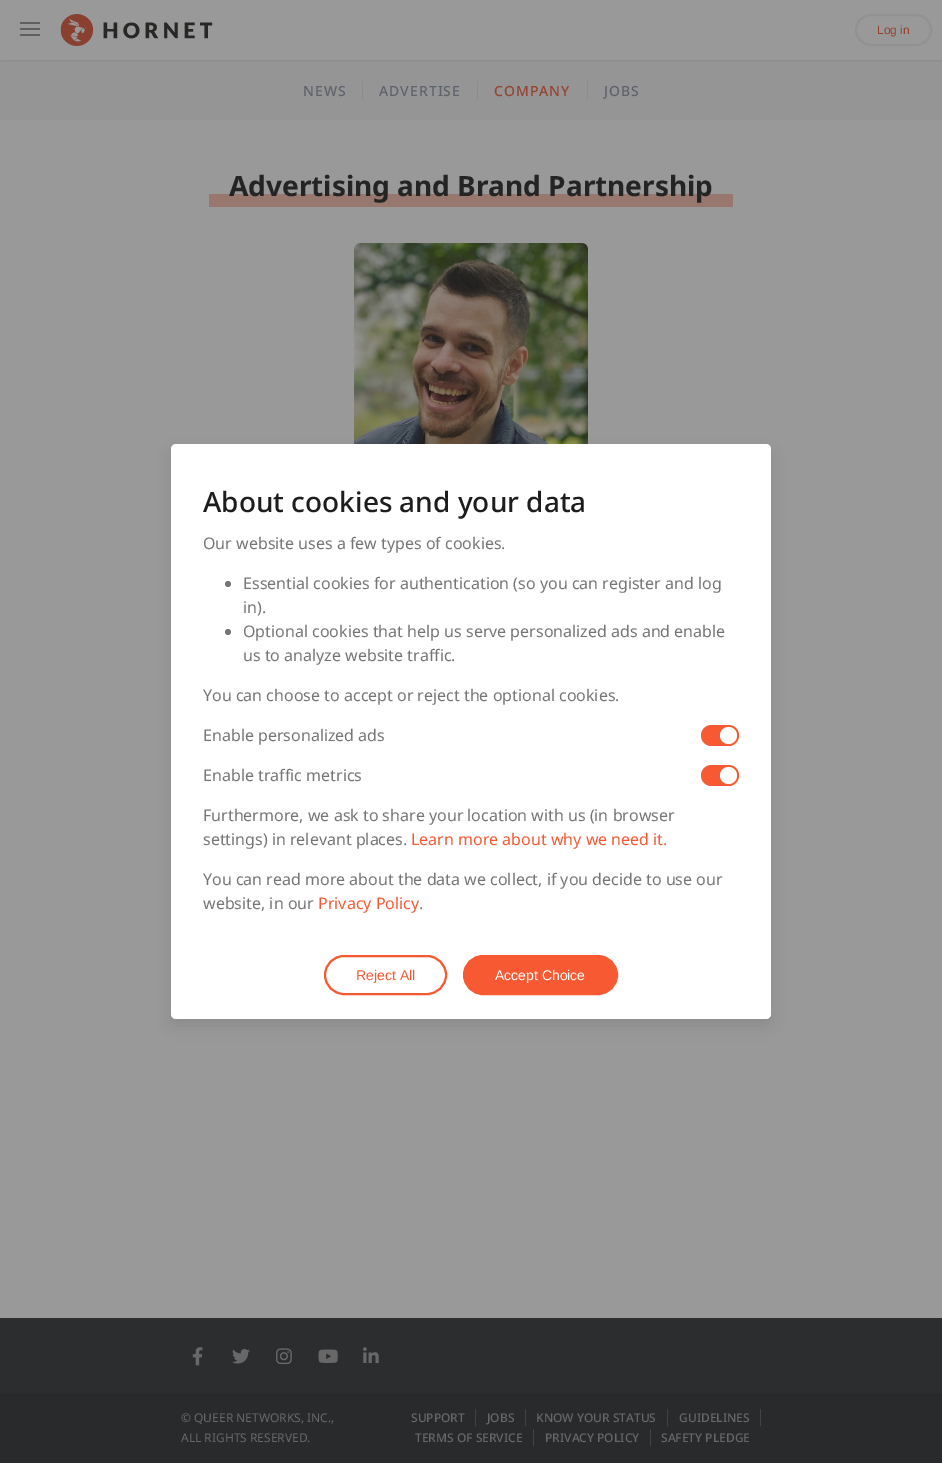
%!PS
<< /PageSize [942 1463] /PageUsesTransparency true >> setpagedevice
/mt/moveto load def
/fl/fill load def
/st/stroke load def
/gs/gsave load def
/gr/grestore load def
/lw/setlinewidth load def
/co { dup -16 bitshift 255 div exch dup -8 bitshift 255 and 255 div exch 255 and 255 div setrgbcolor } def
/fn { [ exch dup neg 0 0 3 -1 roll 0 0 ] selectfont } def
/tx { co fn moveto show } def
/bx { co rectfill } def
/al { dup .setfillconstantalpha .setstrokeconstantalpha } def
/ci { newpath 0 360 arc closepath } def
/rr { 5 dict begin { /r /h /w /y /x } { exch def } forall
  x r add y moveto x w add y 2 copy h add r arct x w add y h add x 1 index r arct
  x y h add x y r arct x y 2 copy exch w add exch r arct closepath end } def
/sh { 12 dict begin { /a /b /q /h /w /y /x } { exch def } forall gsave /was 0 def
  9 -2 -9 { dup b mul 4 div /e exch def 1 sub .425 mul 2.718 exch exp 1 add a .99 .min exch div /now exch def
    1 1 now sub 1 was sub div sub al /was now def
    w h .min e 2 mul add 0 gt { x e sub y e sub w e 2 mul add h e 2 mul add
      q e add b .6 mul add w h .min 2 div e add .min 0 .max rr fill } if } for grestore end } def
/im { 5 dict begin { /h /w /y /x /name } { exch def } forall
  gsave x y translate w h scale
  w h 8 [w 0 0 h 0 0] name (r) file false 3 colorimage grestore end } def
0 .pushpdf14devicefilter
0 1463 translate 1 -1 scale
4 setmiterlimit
0 0 942 1463 16#959595 bx
16#151515 co
0 1 942 60 0 1 .1 sh
0 0 942 60 16#999999 bx
16#5F5F5F co
20 22 20 2 1 rr fl
20 28 20 2 1 rr fl
20 34 20 2 1 rr fl
(media/1.raw) 60 14 153 32 im
16#919191 co
2 lw
856 15 75 30 15 rr st
362 81 1 19 16#8C8C8C bx
477 81 1 19 16#8C8C8C bx
587 81 1 19 16#8C8C8C bx
0 120 942 1198 16#999999 bx
209 194 524 13 16#98776F bx
(media/2.raw) 354 243 234 201 im
0 1318 942 75 16#2B2D2F bx
(media/3.raw) 192 1347 11 19 im
(media/4.raw) 232 1349 18 15 im
(media/5.raw) 276 1348 16 17 im
(media/6.raw) 318 1349 20 14 im
(media/7.raw) 363 1347 16 16 im
0 1393 942 70 16#282A2C bx
475 1409 1 17 16#434344 bx
525 1409 1 17 16#434344 bx
667 1409 1 17 16#434344 bx
760 1409 1 17 16#434344 bx
533 1429 1 17 16#434344 bx
650 1429 1 17 16#434344 bx
16#0A0A0A co
173 454 596 571 3 8 .1 sh
16#FFFFFF co
171 444 600 575 5 rr fl
16#757575 co
228 584 3 ci fl
228 632 3 ci fl
16#F75932 co
701 725 38 21 10.5 rr fl
16#FFFFFF co
728.5 735.5 8.5 ci fl
16#F75932 co
701 765 38 21 10.5 rr fl
16#FFFFFF co
728.5 775.5 8.5 ci fl
16#F75932 co
325 956 121 38 19 rr st
464 956 153 38 19 rr gs fl gr
st
(Log in) 877 34 /LiberationSans-Regular 12 16#95432F tx
/NotoSans-Medium 14 fn
16#5E626B co
303 96 mt 1 0 (NEWS) ashow
379 96 mt 1 0 (ADVERTISE) ashow
16#95432F co
494 96 mt 1 0 (COMPANY) ashow
16#5E626B co
604 96 mt 1 0 (JOBS) ashow
(Advertising and Brand Partnership) 229 196 /NotoSans-Bold 28 16#242424 tx
(© QUEER NETWORKS, INC.,) 181 1422 /NotoSans-Regular 12 16#686868 tx
(ALL RIGHTS RESERVED.) 181 1442 /NotoSans-Regular 12 16#686868 tx
(SUPPORT) 411 1422 /NotoSans-Medium 12 16#686868 tx
(JOBS) 487 1422 /NotoSans-Medium 12 16#686868 tx
(KNOW YOUR STATUS) 536 1422 /NotoSans-Medium 12 16#686868 tx
(GUIDELINES) 679 1422 /NotoSans-Medium 12 16#686868 tx
(TERMS OF SERVICE) 415 1442 /NotoSans-Medium 12 16#686868 tx
(PRIVACY POLICY) 545 1442 /NotoSans-Medium 12 16#686868 tx
(SAFETY PLEDGE) 661 1442 /NotoSans-Medium 12 16#686868 tx
(About cookies and your data) 203 512 /NotoSans-Medium 28 16#1D1D1D tx
(Our website uses a few types of cookies.) 203 549 /NotoSans-Regular 16 16#757575 tx
(Essential cookies for authentication \(so you can register and log) 243 589 /NotoSans-Regular 16 16#757575 tx
(in\).) 243 613 /NotoSans-Regular 16 16#757575 tx
(Optional cookies that help us serve personalized ads and enable) 243 637 /NotoSans-Regular 16 16#757575 tx
(us to analyze website traffic.) 243 661 /NotoSans-Regular 16 16#757575 tx
(You can choose to accept or reject the optional cookies.) 203 701 /NotoSans-Regular 16 16#757575 tx
(Enable personalized ads) 203 741 /NotoSans-Regular 16 16#757575 tx
(Enable traffic metrics) 203 781 /NotoSans-Regular 16 16#757575 tx
(Furthermore, we ask to share your location with us \(in browser) 203 821 /NotoSans-Regular 16 16#757575 tx
(settings\) in relevant places.) 203 845 /NotoSans-Regular 16 16#757575 tx
(Learn more about why we need it.) 411 845 /NotoSans-Regular 16 16#F75932 tx
(You can read more about the data we collect, if you decide to use our) 203 885 /NotoSans-Regular 16 16#757575 tx
(website, in our) 203 909 /NotoSans-Regular 16 16#757575 tx
(Privacy Policy) 318 909 /NotoSans-Regular 16 16#F75932 tx
(.) 419 909 /NotoSans-Regular 16 16#757575 tx
(Reject All) 356 980 /LiberationSans-Regular 14 16#F75932 tx
(Accept Choice) 495 980 /LiberationSans-Regular 14 16#FFFFFF tx
.poppdf14devicefilter showpage
